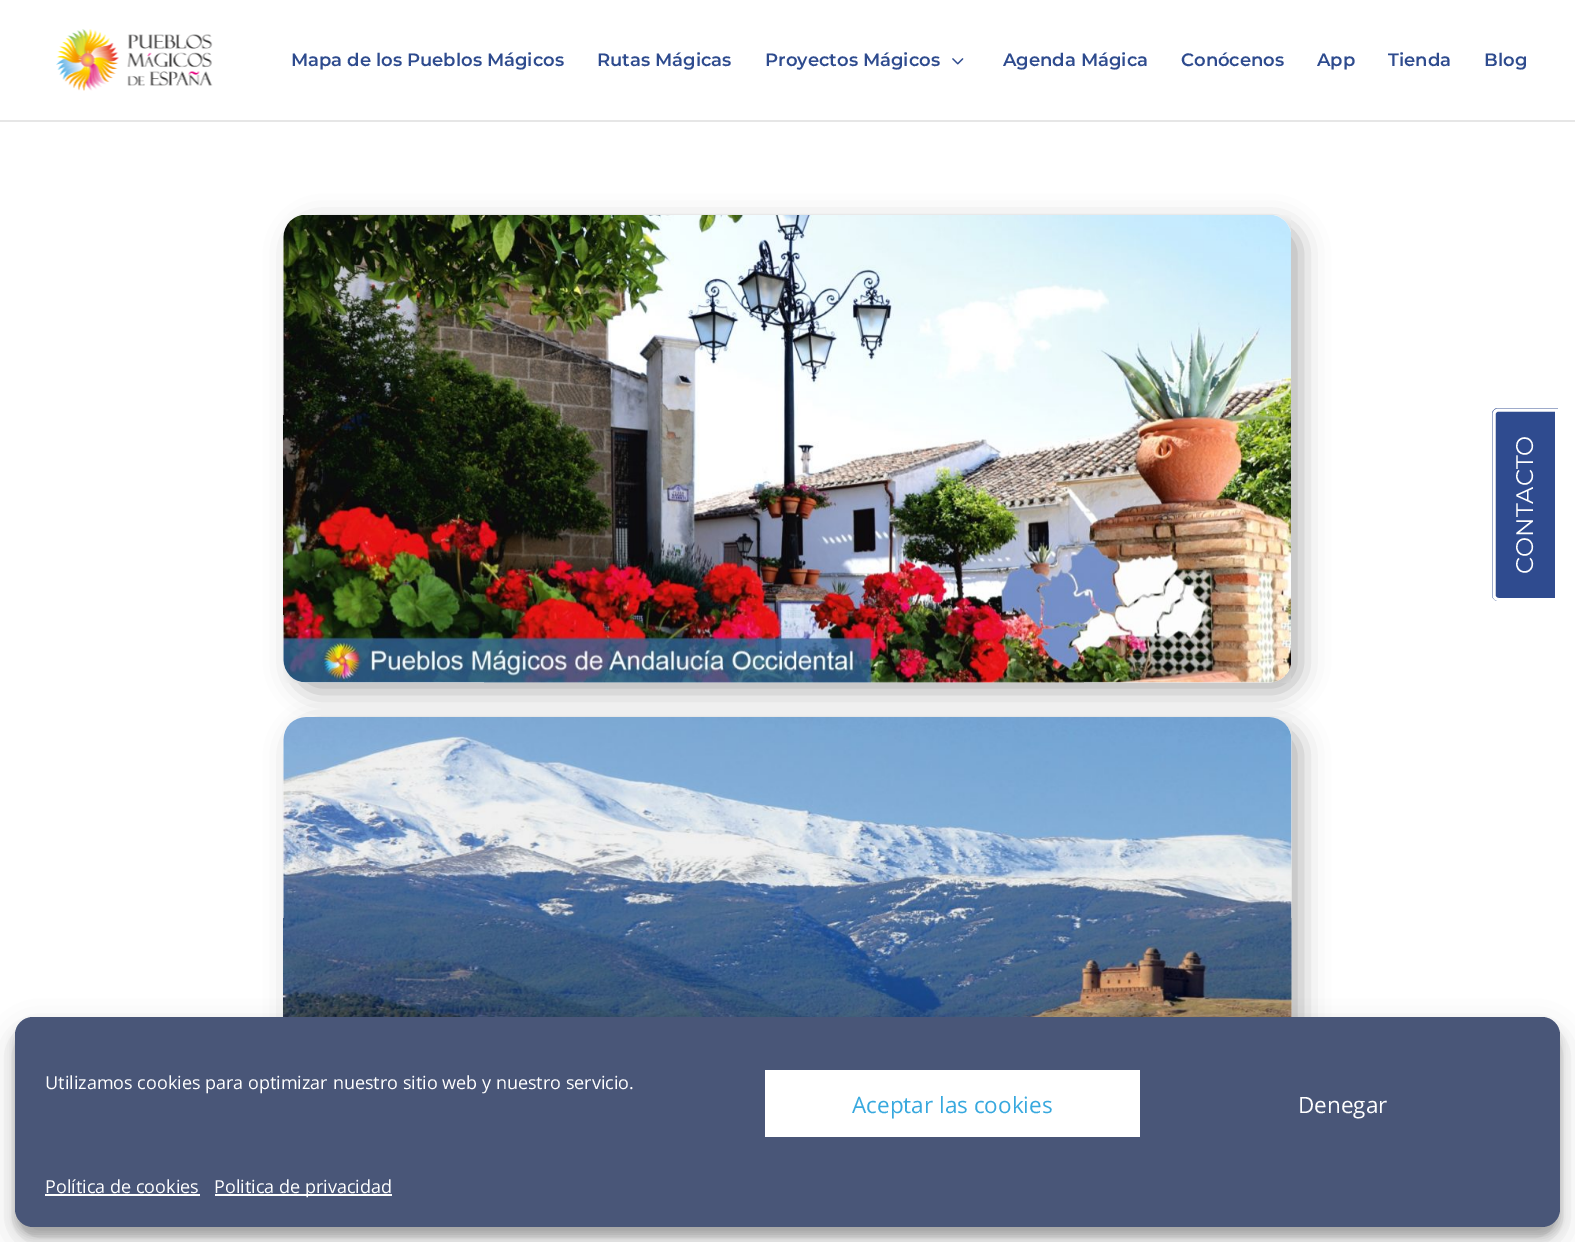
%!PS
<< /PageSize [1575 1242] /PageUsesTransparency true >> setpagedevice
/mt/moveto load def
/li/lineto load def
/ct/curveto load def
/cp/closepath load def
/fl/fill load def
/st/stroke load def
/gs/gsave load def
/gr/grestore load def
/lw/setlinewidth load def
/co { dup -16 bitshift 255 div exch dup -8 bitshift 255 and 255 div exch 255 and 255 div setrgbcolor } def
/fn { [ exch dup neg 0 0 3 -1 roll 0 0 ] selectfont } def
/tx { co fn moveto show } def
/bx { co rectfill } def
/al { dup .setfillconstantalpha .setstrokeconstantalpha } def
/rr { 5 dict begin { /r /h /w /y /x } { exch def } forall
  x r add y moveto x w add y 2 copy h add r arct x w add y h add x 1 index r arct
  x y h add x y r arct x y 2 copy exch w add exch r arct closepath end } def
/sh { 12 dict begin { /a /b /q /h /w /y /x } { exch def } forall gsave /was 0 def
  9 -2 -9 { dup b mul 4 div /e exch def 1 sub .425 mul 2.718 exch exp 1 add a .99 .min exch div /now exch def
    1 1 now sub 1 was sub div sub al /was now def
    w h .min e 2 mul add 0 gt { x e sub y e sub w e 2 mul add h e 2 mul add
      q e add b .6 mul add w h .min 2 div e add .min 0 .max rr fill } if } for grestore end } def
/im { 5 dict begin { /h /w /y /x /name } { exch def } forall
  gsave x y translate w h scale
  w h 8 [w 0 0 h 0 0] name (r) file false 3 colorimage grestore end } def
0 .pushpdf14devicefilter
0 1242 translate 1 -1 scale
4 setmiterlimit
0 0 1575 1242 16#FFFFFF bx
0 120 1575 2 16#E6E6E6 bx
(media/1.raw) 56 29 157 62 im
(media/2.raw) 952 58 12 7 im
16#000000 co
293 224 1008 468 23 13.5 .3 sh
(media/3.raw) 283 215 1008 468 im
293 726 1008 468 23 13.5 .3 sh
(media/4.raw) 283 717 1009 300 im
16#2F4B8F co
1492 595 mt 1492 414 li 1492 411 1495 408 1498 408 ct 1558 408 li 1558 601 li 1498 601 li 1495 601 1492 598 1492 595 ct cp fl
16#FFFFFF co
3 lw
1494 595 mt 1494 414.5 li 1494 412 1496 410 1498.5 410 ct 1556.5 410 li 1556.5 599.5 li 1498.5 599.5 li 1496 599.5 1494 597.5 1494 595 ct cp st
16#000000 co
15 1026 1545 210 18 4.5 .23 sh
15 1032 1545 210 18 15 .19 sh
16#495678 co
15 1017 1545 210 18 rr fl
765 1070 375 67 16#FFFFFF bx
45 1194 155 2 16#FFFFFF bx
215 1194 177 2 16#FFFFFF bx
(Mapa de los Pueblos Mágicos) 291 66 /Montserrat-SemiBold 18 16#2E4B8E tx
(Rutas Mágicas) 597 66 /Montserrat-SemiBold 18 16#2E4B8E tx
(Proyectos Mágicos) 765 66 /Montserrat-SemiBold 18 16#2E4B8E tx
(Agenda Mágica) 1003 66 /Montserrat-SemiBold 18 16#2E4B8E tx
(Conócenos) 1181 66 /Montserrat-SemiBold 18 16#2E4B8E tx
(App) 1317 66 /Montserrat-SemiBold 18 16#2E4B8E tx
(Tienda) 1388 66 /Montserrat-SemiBold 18 16#2E4B8E tx
(Blog) 1484 66 /Montserrat-SemiBold 18 16#2E4B8E tx
/Montserrat-Regular 24 fn
16#FFFFFF co
gs 1533 574 translate -90 rotate 0 0 mt (CONTACTO) show gr
(Utilizamos cookies para optimizar nuestro sitio web y nuestro servicio.) 45 1089 /OpenSans-Regular 18 16#FFFFFF tx
(Aceptar las cookies) 852 1113 /OpenSans-Regular 22.5 16#37A8DE tx
(Denegar) 1298 1113 /OpenSans-Regular 22.5 16#FFFFFF tx
(Política de cookies) 45 1193 /OpenSans-Regular 18 16#FFFFFF tx
(Politica de privacidad) 214 1193 /OpenSans-Regular 18 16#FFFFFF tx
.poppdf14devicefilter showpage
